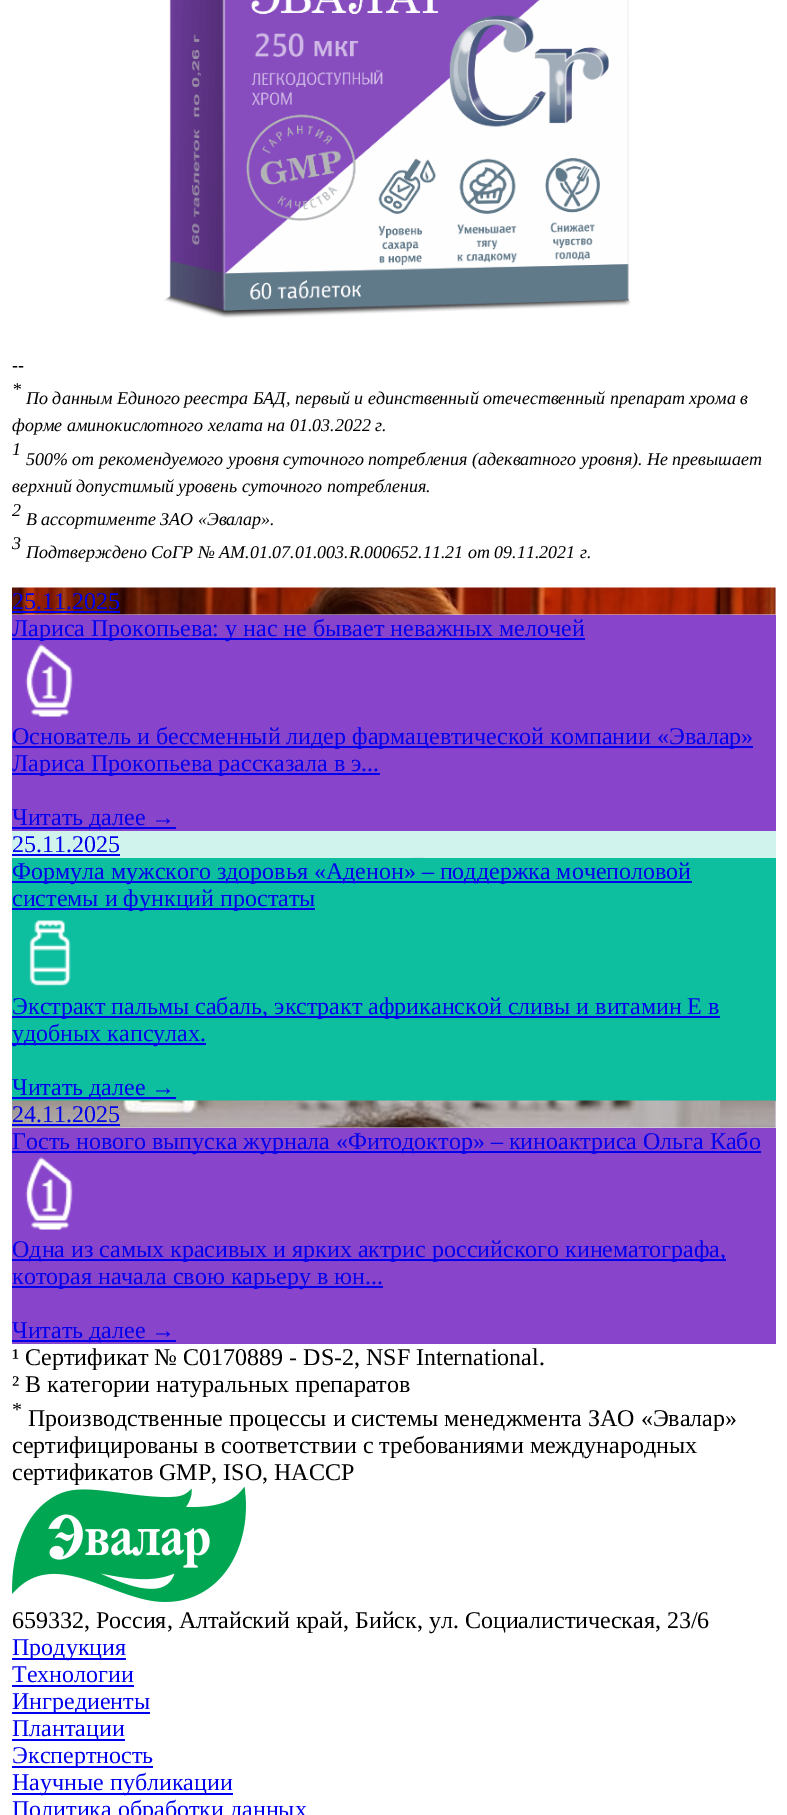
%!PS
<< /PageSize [787 1815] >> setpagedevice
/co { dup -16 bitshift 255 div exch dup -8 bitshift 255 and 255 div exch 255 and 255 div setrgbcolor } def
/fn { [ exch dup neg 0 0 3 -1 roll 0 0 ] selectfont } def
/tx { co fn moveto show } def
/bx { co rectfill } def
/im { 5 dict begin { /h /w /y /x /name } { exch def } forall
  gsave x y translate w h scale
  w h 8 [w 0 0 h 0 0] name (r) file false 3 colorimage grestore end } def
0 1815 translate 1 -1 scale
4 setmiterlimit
0 0 787 1815 16#FFFFFF bx
(media/1.raw) 164 0 467 318 im
12 588 764 27 16#E8DBF5 bx
(media/2.raw) 12 587 764 28 im
12 611 108 2 16#0000EE bx
12 615 764 216 16#8844CA bx
12 638 573 2 16#0000EE bx
(media/3.raw) 25 644 48 73 im
12 746 741 2 16#0000EE bx
12 773 368 2 16#0000EE bx
12 827 164 2 16#0000EE bx
12 831 764 27 16#D1F3ED bx
(media/4.raw) 405 857 19 1 im
12 854 108 2 16#0000EE bx
12 858 764 243 16#0DBE9F bx
12 881 680 2 16#0000EE bx
12 908 303 2 16#0000EE bx
(media/5.raw) 29 920 42 66 im
12 1016 708 2 16#0000EE bx
12 1043 194 2 16#0000EE bx
12 1097 164 2 16#0000EE bx
12 1101 764 27 16#E8DBF5 bx
(media/6.raw) 12 1100 764 28 im
12 1124 108 2 16#0000EE bx
12 1128 764 216 16#8844CA bx
12 1151 749 2 16#0000EE bx
(media/3.raw) 25 1157 48 73 im
12 1259 714 2 16#0000EE bx
12 1286 371 2 16#0000EE bx
12 1340 164 2 16#0000EE bx
(media/7.raw) 12 1487 234 115 im
12 1658 114 2 16#0000EE bx
12 1685 122 2 16#0000EE bx
12 1712 138 2 16#0000EE bx
12 1739 113 2 16#0000EE bx
12 1766 141 2 16#0000EE bx
12 1793 221 2 16#0000EE bx
(--) 12 371 /LiberationSerif-Italic 18 16#000000 tx
(*) 12 395 /LiberationSerif-Italic 18 16#000000 tx
(По данным Единого реестра БАД, первый и единственный отечественный препарат хрома в) 26 404 /LiberationSerif-Italic 18 16#000000 tx
(форме аминокислотного хелата на 01.03.2022 г.) 12 431 /LiberationSerif-Italic 18 16#000000 tx
(1) 12 455 /LiberationSerif-Italic 18 16#000000 tx
(500% от рекомендуемого уровня суточного потребления \(адекватного уровня\). Не превышает) 26 465 /LiberationSerif-Italic 18 16#000000 tx
(верхний допустимый уровень суточного потребления.) 12 492 /LiberationSerif-Italic 18 16#000000 tx
(2) 12 516 /LiberationSerif-Italic 18 16#000000 tx
(В ассортименте ЗАО «Эвалар».) 26 525 /LiberationSerif-Italic 18 16#000000 tx
(3) 12 549 /LiberationSerif-Italic 18 16#000000 tx
(Подтверждено СоГР № AM.01.07.01.003.R.000652.11.21 от 09.11.2021 г.) 26 558 /LiberationSerif-Italic 18 16#000000 tx
(25.11.2025) 12 609 /LiberationSerif-Regular 24 16#0000EE tx
(Лариса Прокопьева: у нас не бывает неважных мелочей) 12 636 /LiberationSerif-Regular 24 16#0000EE tx
(Основатель и бессменный лидер фармацевтической компании «Эвалар») 12 744 /LiberationSerif-Regular 24 16#0000EE tx
(Лариса Прокопьева рассказала в э...) 12 771 /LiberationSerif-Regular 24 16#0000EE tx
(Читать далее →) 12 825 /LiberationSerif-Regular 24 16#0000EE tx
(25.11.2025) 12 852 /LiberationSerif-Regular 24 16#0000EE tx
(Формула мужского здоровья «Аденон» – поддержка мочеполовой) 12 879 /LiberationSerif-Regular 24 16#0000EE tx
(системы и функций простаты) 12 906 /LiberationSerif-Regular 24 16#0000EE tx
(Экстракт пальмы сабаль, экстракт африканской сливы и витамин Е в) 12 1014 /LiberationSerif-Regular 24 16#0000EE tx
(удобных капсулах.) 12 1041 /LiberationSerif-Regular 24 16#0000EE tx
(Читать далее →) 12 1095 /LiberationSerif-Regular 24 16#0000EE tx
(24.11.2025) 12 1122 /LiberationSerif-Regular 24 16#0000EE tx
(Гость нового выпуска журнала «Фитодоктор» – киноактриса Ольга Кабо) 12 1149 /LiberationSerif-Regular 24 16#0000EE tx
(Одна из самых красивых и ярких актрис российского кинематографа,) 12 1257 /LiberationSerif-Regular 24 16#0000EE tx
(которая начала свою карьеру в юн...) 12 1284 /LiberationSerif-Regular 24 16#0000EE tx
(Читать далее →) 12 1338 /LiberationSerif-Regular 24 16#0000EE tx
(¹ Сертификат № C0170889 - DS-2, NSF International.) 12 1365 /LiberationSerif-Regular 24 16#000000 tx
(² В категории натуральных препаратов) 12 1392 /LiberationSerif-Regular 24 16#000000 tx
(*) 12 1416 /LiberationSerif-Regular 20 16#000000 tx
(Производственные процессы и системы менеджмента ЗАО «Эвалар») 28 1426 /LiberationSerif-Regular 24 16#000000 tx
(сертифицированы в соответствии с требованиями международных) 12 1453 /LiberationSerif-Regular 24 16#000000 tx
(сертификатов GMP, ISO, HACCP) 12 1480 /LiberationSerif-Regular 24 16#000000 tx
(659332, Россия, Алтайский край, Бийск, ул. Социалистическая, 23/6) 12 1628 /LiberationSerif-Regular 24 16#000000 tx
(Продукция) 12 1655 /LiberationSerif-Regular 24 16#0000EE tx
(Технологии) 12 1682 /LiberationSerif-Regular 24 16#0000EE tx
(Ингредиенты) 12 1709 /LiberationSerif-Regular 24 16#0000EE tx
(Плантации) 12 1736 /LiberationSerif-Regular 24 16#0000EE tx
(Экспертность) 12 1763 /LiberationSerif-Regular 24 16#0000EE tx
(Научные публикации) 12 1790 /LiberationSerif-Regular 24 16#0000EE tx
(Политика обработки данных) 12 1817 /LiberationSerif-Regular 24 16#0000EE tx
showpage
